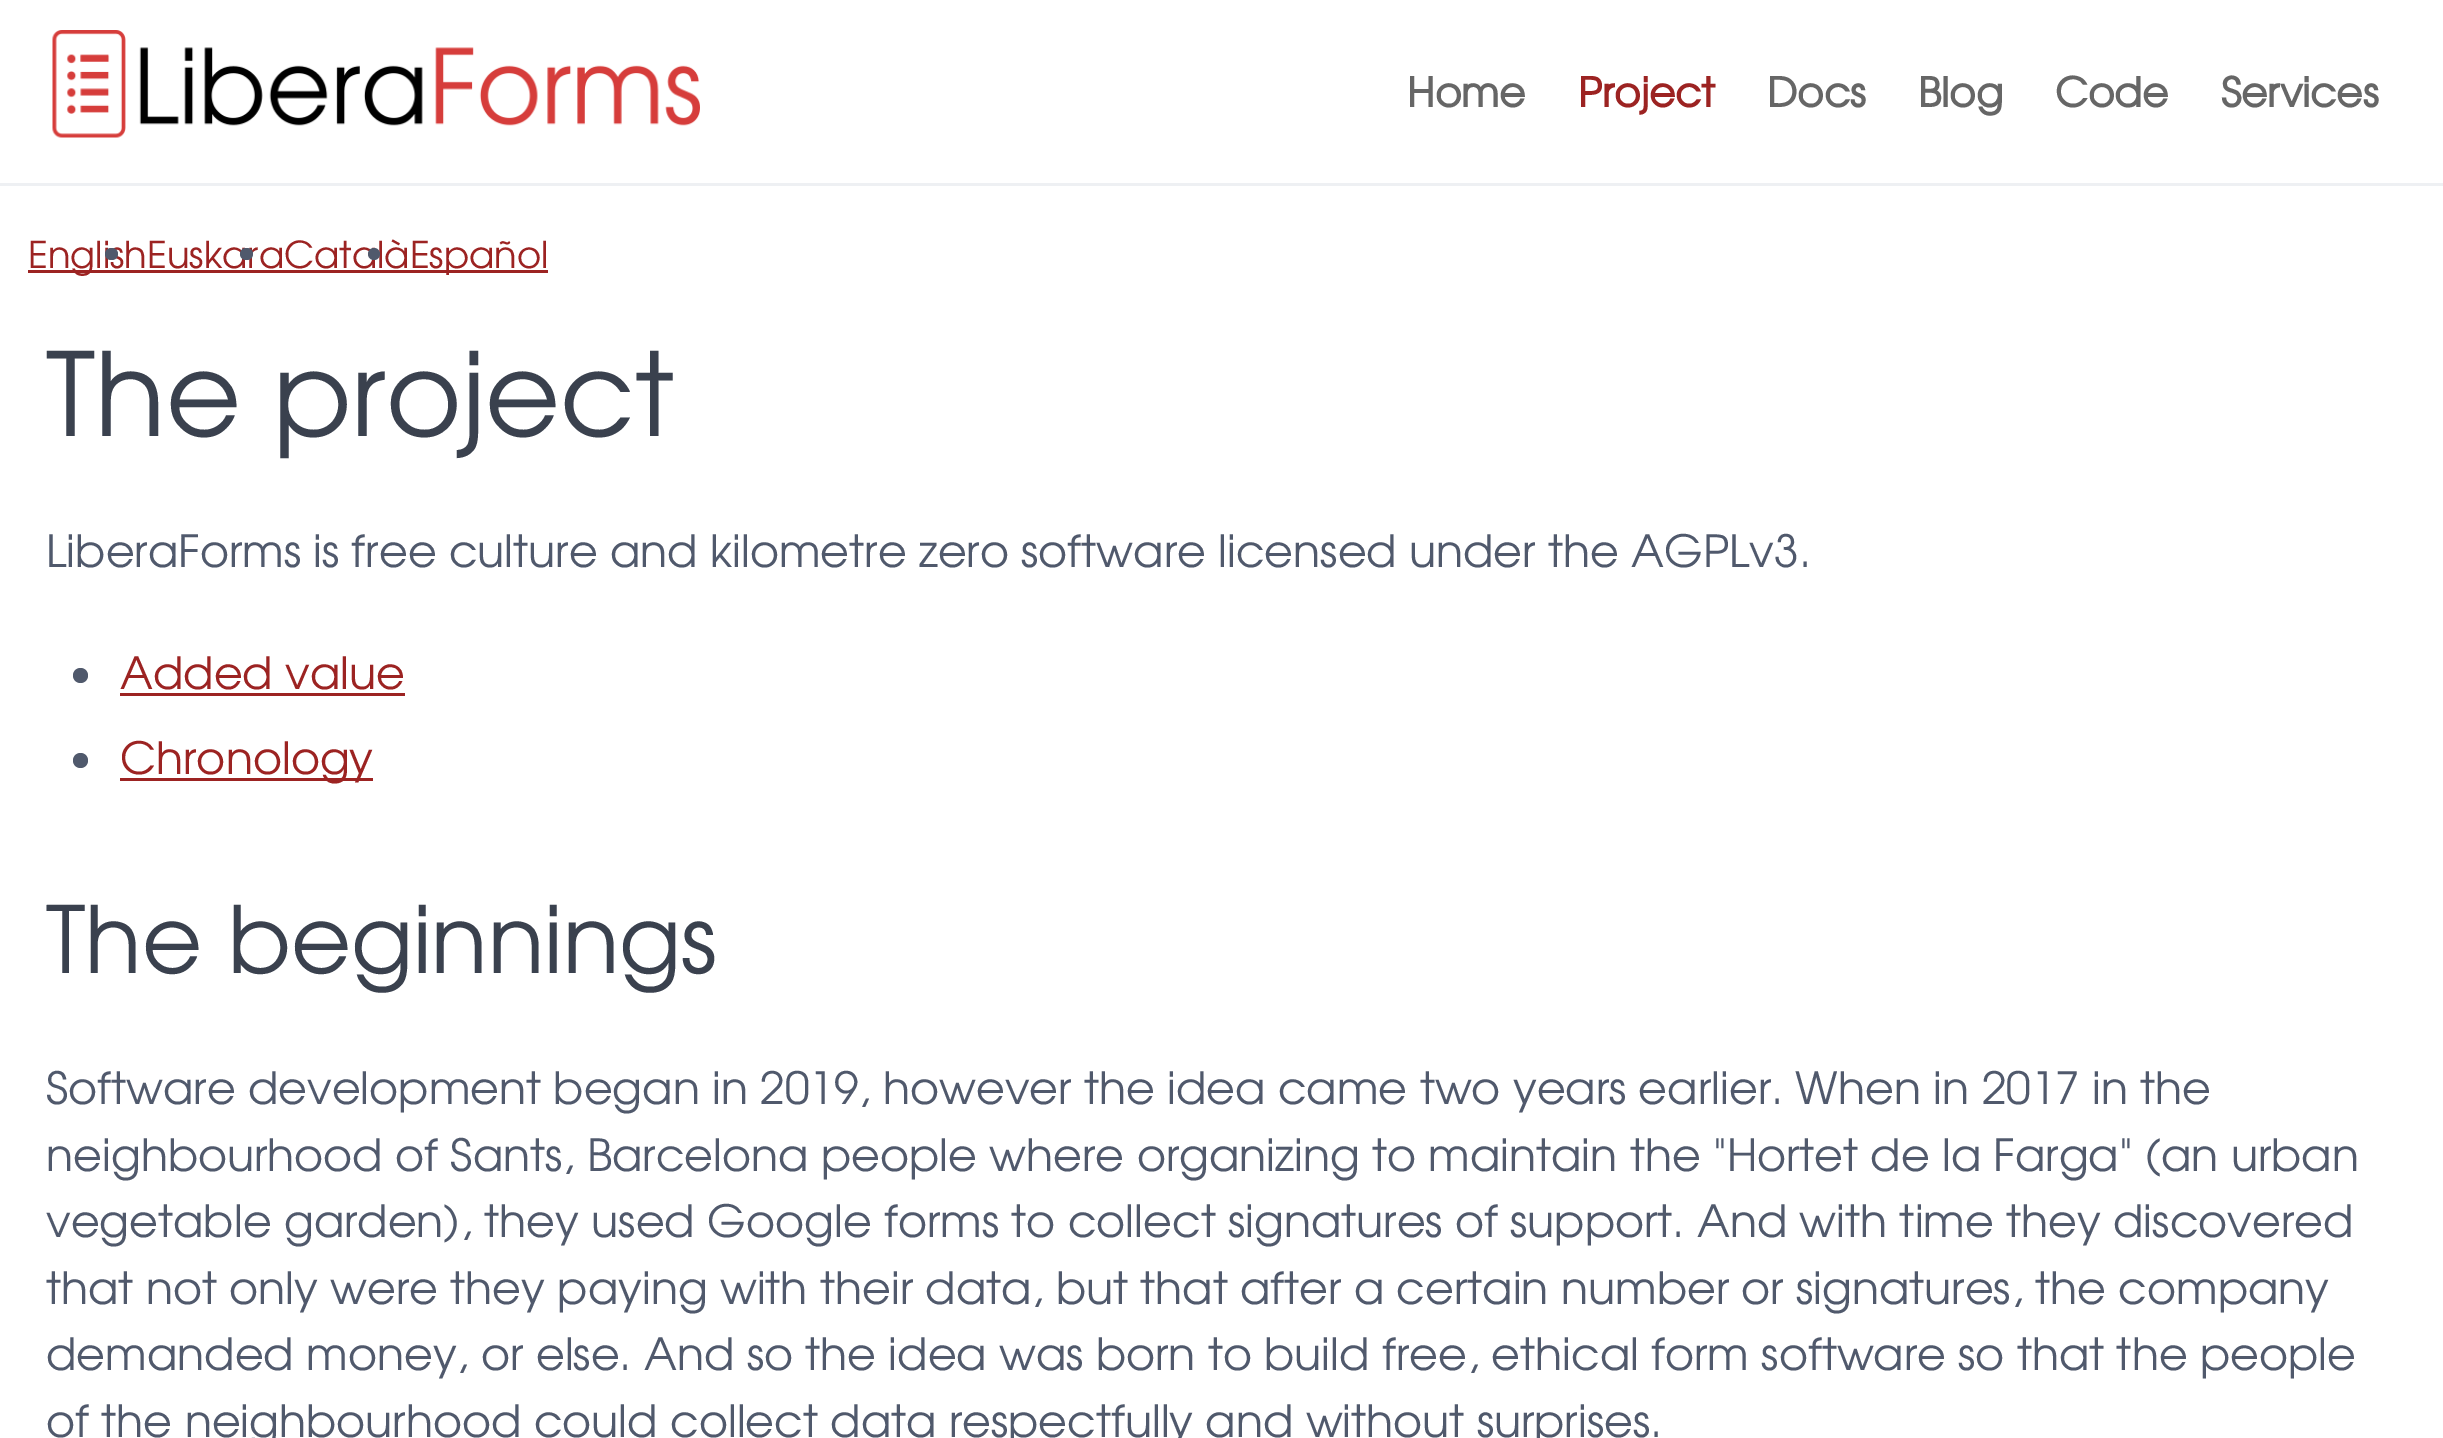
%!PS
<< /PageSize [2443 1438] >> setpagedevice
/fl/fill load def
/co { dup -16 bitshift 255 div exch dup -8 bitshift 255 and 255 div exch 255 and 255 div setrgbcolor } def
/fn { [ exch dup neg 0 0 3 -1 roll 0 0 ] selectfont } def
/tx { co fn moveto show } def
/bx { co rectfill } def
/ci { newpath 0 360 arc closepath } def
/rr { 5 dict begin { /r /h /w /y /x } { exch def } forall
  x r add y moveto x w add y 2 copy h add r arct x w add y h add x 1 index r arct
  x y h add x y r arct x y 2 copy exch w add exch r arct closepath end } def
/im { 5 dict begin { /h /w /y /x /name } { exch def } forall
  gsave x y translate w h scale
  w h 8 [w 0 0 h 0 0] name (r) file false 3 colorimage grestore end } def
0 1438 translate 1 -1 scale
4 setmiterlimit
0 0 2443 1438 16#FFFFFF bx
0 183 2443 3 16#EEF0F3 bx
(media/1.raw) 52 30 648 108 im
28 270 520 3 16#9C2322 bx
16#50596C co
80.5 675.5 7.5 ci fl
120 693 285 3 16#9C2322 bx
16#50596C co
80.5 760.5 7.5 ci fl
120 778 253 3 16#9C2322 bx
(Home) 1407 107 /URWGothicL-Bold 40.5 16#666666 tx
(Project) 1578 107 /URWGothicL-Bold 40.5 16#9C2322 tx
(Docs) 1767 107 /URWGothicL-Bold 40.5 16#666666 tx
(Blog) 1918 107 /URWGothicL-Bold 40.5 16#666666 tx
(Code) 2055 107 /URWGothicL-Bold 40.5 16#666666 tx
(Services) 2221 107 /URWGothicL-Bold 40.5 16#666666 tx
(EnglishEuskaraCatalàEspañol) 28 268 /URWGothicL-Regular 37 16#9C2322 tx
16#50596C co
105 248 13 12 6 rr fl
240 248 13 12 6 rr fl
374 254 6 ci fl
(The project) 46 436 /URWGothicL-Regular 115.5 16#3A414E tx
(LiberaForms is free culture and kilometre zero software licensed under the AGPLv3.) 46 567 /URWGothicL-Regular 44.38 16#50596C tx
(Added value) 120 689 /URWGothicL-Regular 44.38 16#9C2322 tx
(Chronology) 120 774 /URWGothicL-Regular 44.38 16#9C2322 tx
(The beginnings) 46 973 /URWGothicL-Regular 92.5 16#3A414E tx
(Software development began in 2019, however the idea came two years earlier. When in 2017 in the) 46 1104 /URWGothicL-Regular 44.38 16#50596C tx
(neighbourhood of Sants, Barcelona people where organizing to maintain the "Hortet de la Farga" \(an urban) 46 1171 /URWGothicL-Regular 44.38 16#50596C tx
(vegetable garden\), they used Google forms to collect signatures of support. And with time they discovered) 46 1237 /URWGothicL-Regular 44.38 16#50596C tx
(that not only were they paying with their data, but that after a certain number or signatures, the company) 46 1304 /URWGothicL-Regular 44.38 16#50596C tx
(demanded money, or else. And so the idea was born to build free, ethical form software so that the people) 46 1370 /URWGothicL-Regular 44.38 16#50596C tx
(of the neighbourhood could collect data respectfully and without surprises.) 46 1437 /URWGothicL-Regular 44.38 16#50596C tx
showpage
